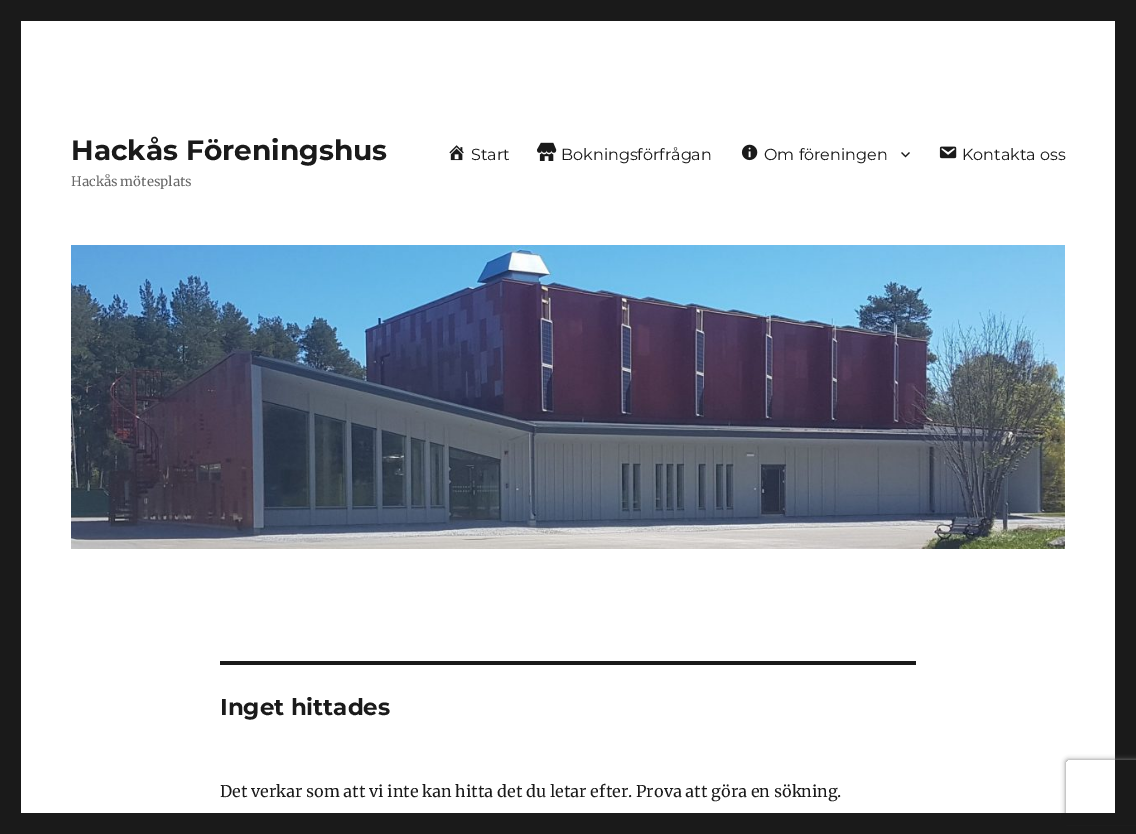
%!PS
<< /PageSize [1136 834] /PageUsesTransparency true >> setpagedevice
/mt/moveto load def
/li/lineto load def
/ct/curveto load def
/cp/closepath load def
/gs/gsave load def
/gr/grestore load def
/co { dup -16 bitshift 255 div exch dup -8 bitshift 255 and 255 div exch 255 and 255 div setrgbcolor } def
/fn { [ exch dup neg 0 0 3 -1 roll 0 0 ] selectfont } def
/tx { co fn moveto show } def
/bx { co rectfill } def
/al { dup .setfillconstantalpha .setstrokeconstantalpha } def
/rr { 5 dict begin { /r /h /w /y /x } { exch def } forall
  x r add y moveto x w add y 2 copy h add r arct x w add y h add x 1 index r arct
  x y h add x y r arct x y 2 copy exch w add exch r arct closepath end } def
/sh { 12 dict begin { /a /b /q /h /w /y /x } { exch def } forall gsave /was 0 def
  9 -2 -9 { dup b mul 4 div /e exch def 1 sub .425 mul 2.718 exch exp 1 add a .99 .min exch div /now exch def
    1 1 now sub 1 was sub div sub al /was now def
    w h .min e 2 mul add 0 gt { x e sub y e sub w e 2 mul add h e 2 mul add
      q e add b .6 mul add w h .min 2 div e add .min 0 .max rr fill } if } for grestore end } def
/im { 5 dict begin { /h /w /y /x /name } { exch def } forall
  gsave x y translate w h scale
  w h 8 [w 0 0 h 0 0] name (r) file false 3 colorimage grestore end } def
0 .pushpdf14devicefilter
0 834 translate 1 -1 scale
4 setmiterlimit
0 0 1136 834 16#1A1A1A bx
21 21 1094 792 16#FFFFFF bx
(media/1.raw) 449 145 15 16 im
(media/2.raw) 537 142 20 19 im
(media/3.raw) 741 144 17 17 im
(media/4.raw) 901 152 9 6 im
(media/5.raw) 939 146 18 13 im
(media/6.raw) 71 245 994 304 im
220 661 696 4 16#1A1A1A bx
gs
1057 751 mt 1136 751 li 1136 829 li 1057 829 li cp 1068 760 mt 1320 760 li 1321 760 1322 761 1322 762 ct 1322 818 li 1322 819 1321 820 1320 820 ct 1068 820 li 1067 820 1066 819 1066 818 ct 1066 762 li 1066 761 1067 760 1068 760 ct cp eoclip newpath
16#808080 co
1066 760 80 60 2 2.5 1 sh
gr
1061 813 75 12 16#1A1A1A bx
(Hackås Föreningshus) 71 160 /Montserrat-Thin 28 16#1A1A1A tx
gs
71 133 316 56 rectclip
(Hackås mötesplats) 71 186 /Merriweather-Regular 13 16#686868 tx
gr
(Start) 471 160 /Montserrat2-Thin 16 16#1A1A1A tx
(Bokningsförfrågan) 561 160 /Montserrat2-Thin 16 16#1A1A1A tx
(Om föreningen) 764 160 /Montserrat2-Thin 16 16#1A1A1A tx
(Kontakta oss) 962 160 /Montserrat2-Thin 16 16#1A1A1A tx
(Inget hittades) 220 715 /Montserrat-Thin 23 16#1A1A1A tx
(Det verkar som att vi inte kan hitta det du letar efter. Prova att göra en sökning.) 220 797 /Merriweather-Regular 16 16#1A1A1A tx
.poppdf14devicefilter showpage
